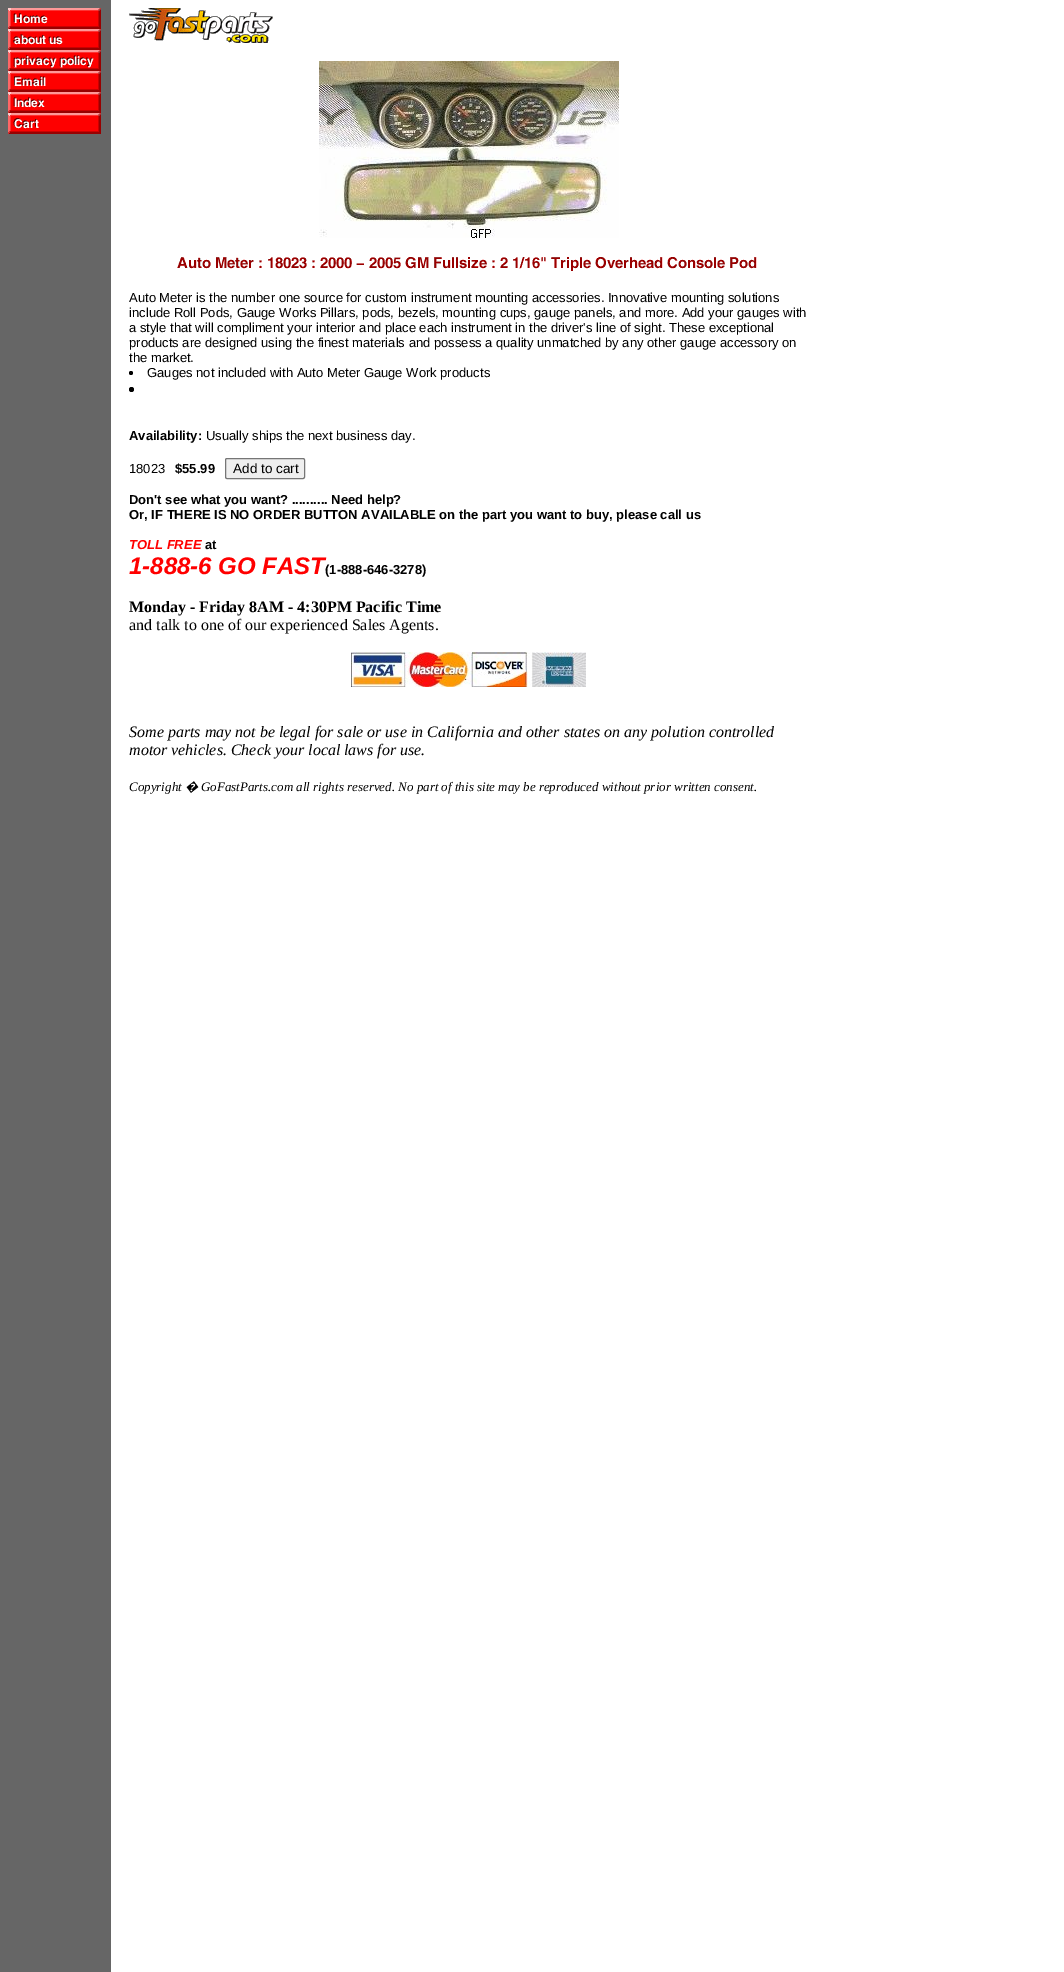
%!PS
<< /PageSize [1064 1972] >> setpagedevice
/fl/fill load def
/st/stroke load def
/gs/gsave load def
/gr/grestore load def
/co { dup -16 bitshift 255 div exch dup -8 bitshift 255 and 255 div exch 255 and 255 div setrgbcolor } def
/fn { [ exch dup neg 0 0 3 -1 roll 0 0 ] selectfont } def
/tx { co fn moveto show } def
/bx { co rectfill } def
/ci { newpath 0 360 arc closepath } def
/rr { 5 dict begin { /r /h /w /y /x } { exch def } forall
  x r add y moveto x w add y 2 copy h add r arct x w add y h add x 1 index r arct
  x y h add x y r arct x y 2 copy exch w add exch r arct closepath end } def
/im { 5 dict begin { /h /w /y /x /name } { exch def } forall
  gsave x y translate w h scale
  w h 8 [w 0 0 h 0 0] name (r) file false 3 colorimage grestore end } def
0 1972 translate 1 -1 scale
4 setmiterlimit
0 0 1064 1972 16#FFFFFF bx
0 0 111 1972 16#666666 bx
(media/1.raw) 8 8 93 126 im
(media/2.raw) 129 8 144 35 im
(media/3.raw) 319 61 300 177 im
(media/4.raw) 177 257 580 14 im
16#000000 co
131 373 2 ci fl
131.5 389.5 2.5 ci fl
16#EFEFEF co
225.5 458.5 79 20 1.5 rr gs fl gr
16#767676 co
st
(media/5.raw) 351 652 235 35 im
(Auto Meter is the number one source for custom instrument mounting accessories. Innovative mounting solutions) 129 302 /LiberationSans-Regular 13 16#000000 tx
(include Roll Pods, Gauge Works Pillars, pods, bezels, mounting cups, gauge panels, and more. Add your gauges with) 129 317 /LiberationSans-Regular 13 16#000000 tx
(a style that will compliment your interior and place each instrument in the driver's line of sight. These exceptional) 129 332 /LiberationSans-Regular 13 16#000000 tx
(products are designed using the finest materials and possess a quality unmatched by any other gauge accessory on) 129 347 /LiberationSans-Regular 13 16#000000 tx
(the market.) 129 362 /LiberationSans-Regular 13 16#000000 tx
(Gauges not included with Auto Meter Gauge Work products) 147 377 /LiberationSans-Regular 13 16#000000 tx
(Availability:) 129 440 /LiberationSans-Bold 13 16#000000 tx
(Usually ships the next business day.) 206 440 /LiberationSans-Regular 13 16#000000 tx
(18023) 129 473 /LiberationSans-Regular 13 16#000000 tx
($55.99) 175 473 /LiberationSans-Bold 13 16#000000 tx
(Add to cart) 233 473 /LiberationSans-Regular 13.5 16#000000 tx
(Don't see what you want? .......... Need help?) 129 504 /LiberationSans-Bold 13 16#000000 tx
(Or, IF THERE IS NO ORDER BUTTON AVAILABLE on the part you want to buy, please call us) 129 519 /LiberationSans-Bold 13 16#000000 tx
(TOLL FREE) 129 549 /LiberationSans-BoldItalic 13 16#FF0000 tx
(at) 205 549 /LiberationSans-Bold 13 16#000000 tx
(1-888-6 GO FAST) 129 574 /LiberationSans-BoldItalic 24 16#FF0000 tx
(\(1-888-646-3278\)) 325 574 /LiberationSans-Bold 13 16#000000 tx
(Monday - Friday 8AM - 4:30PM Pacific Time) 129 612 /LiberationSerif-Bold 16 16#000000 tx
(and talk to one of our experienced Sales Agents.) 129 630 /LiberationSerif-Regular 16 16#000000 tx
(Some parts may not be legal for sale or use in California and other states on any polution controlled) 129 737 /LiberationSerif-Italic 16 16#000000 tx
(motor vehicles. Check your local laws for use.) 129 755 /LiberationSerif-Italic 16 16#000000 tx
(Copyright) 129 791 /LiberationSerif-Italic 13 16#000000 tx
(�) 185 791 /NotoSans-Italic 13 16#000000 tx
(GoFastParts.com all rights reserved. No part of this site may be reproduced without prior written consent.) 201 791 /LiberationSerif-Italic 13 16#000000 tx
showpage
